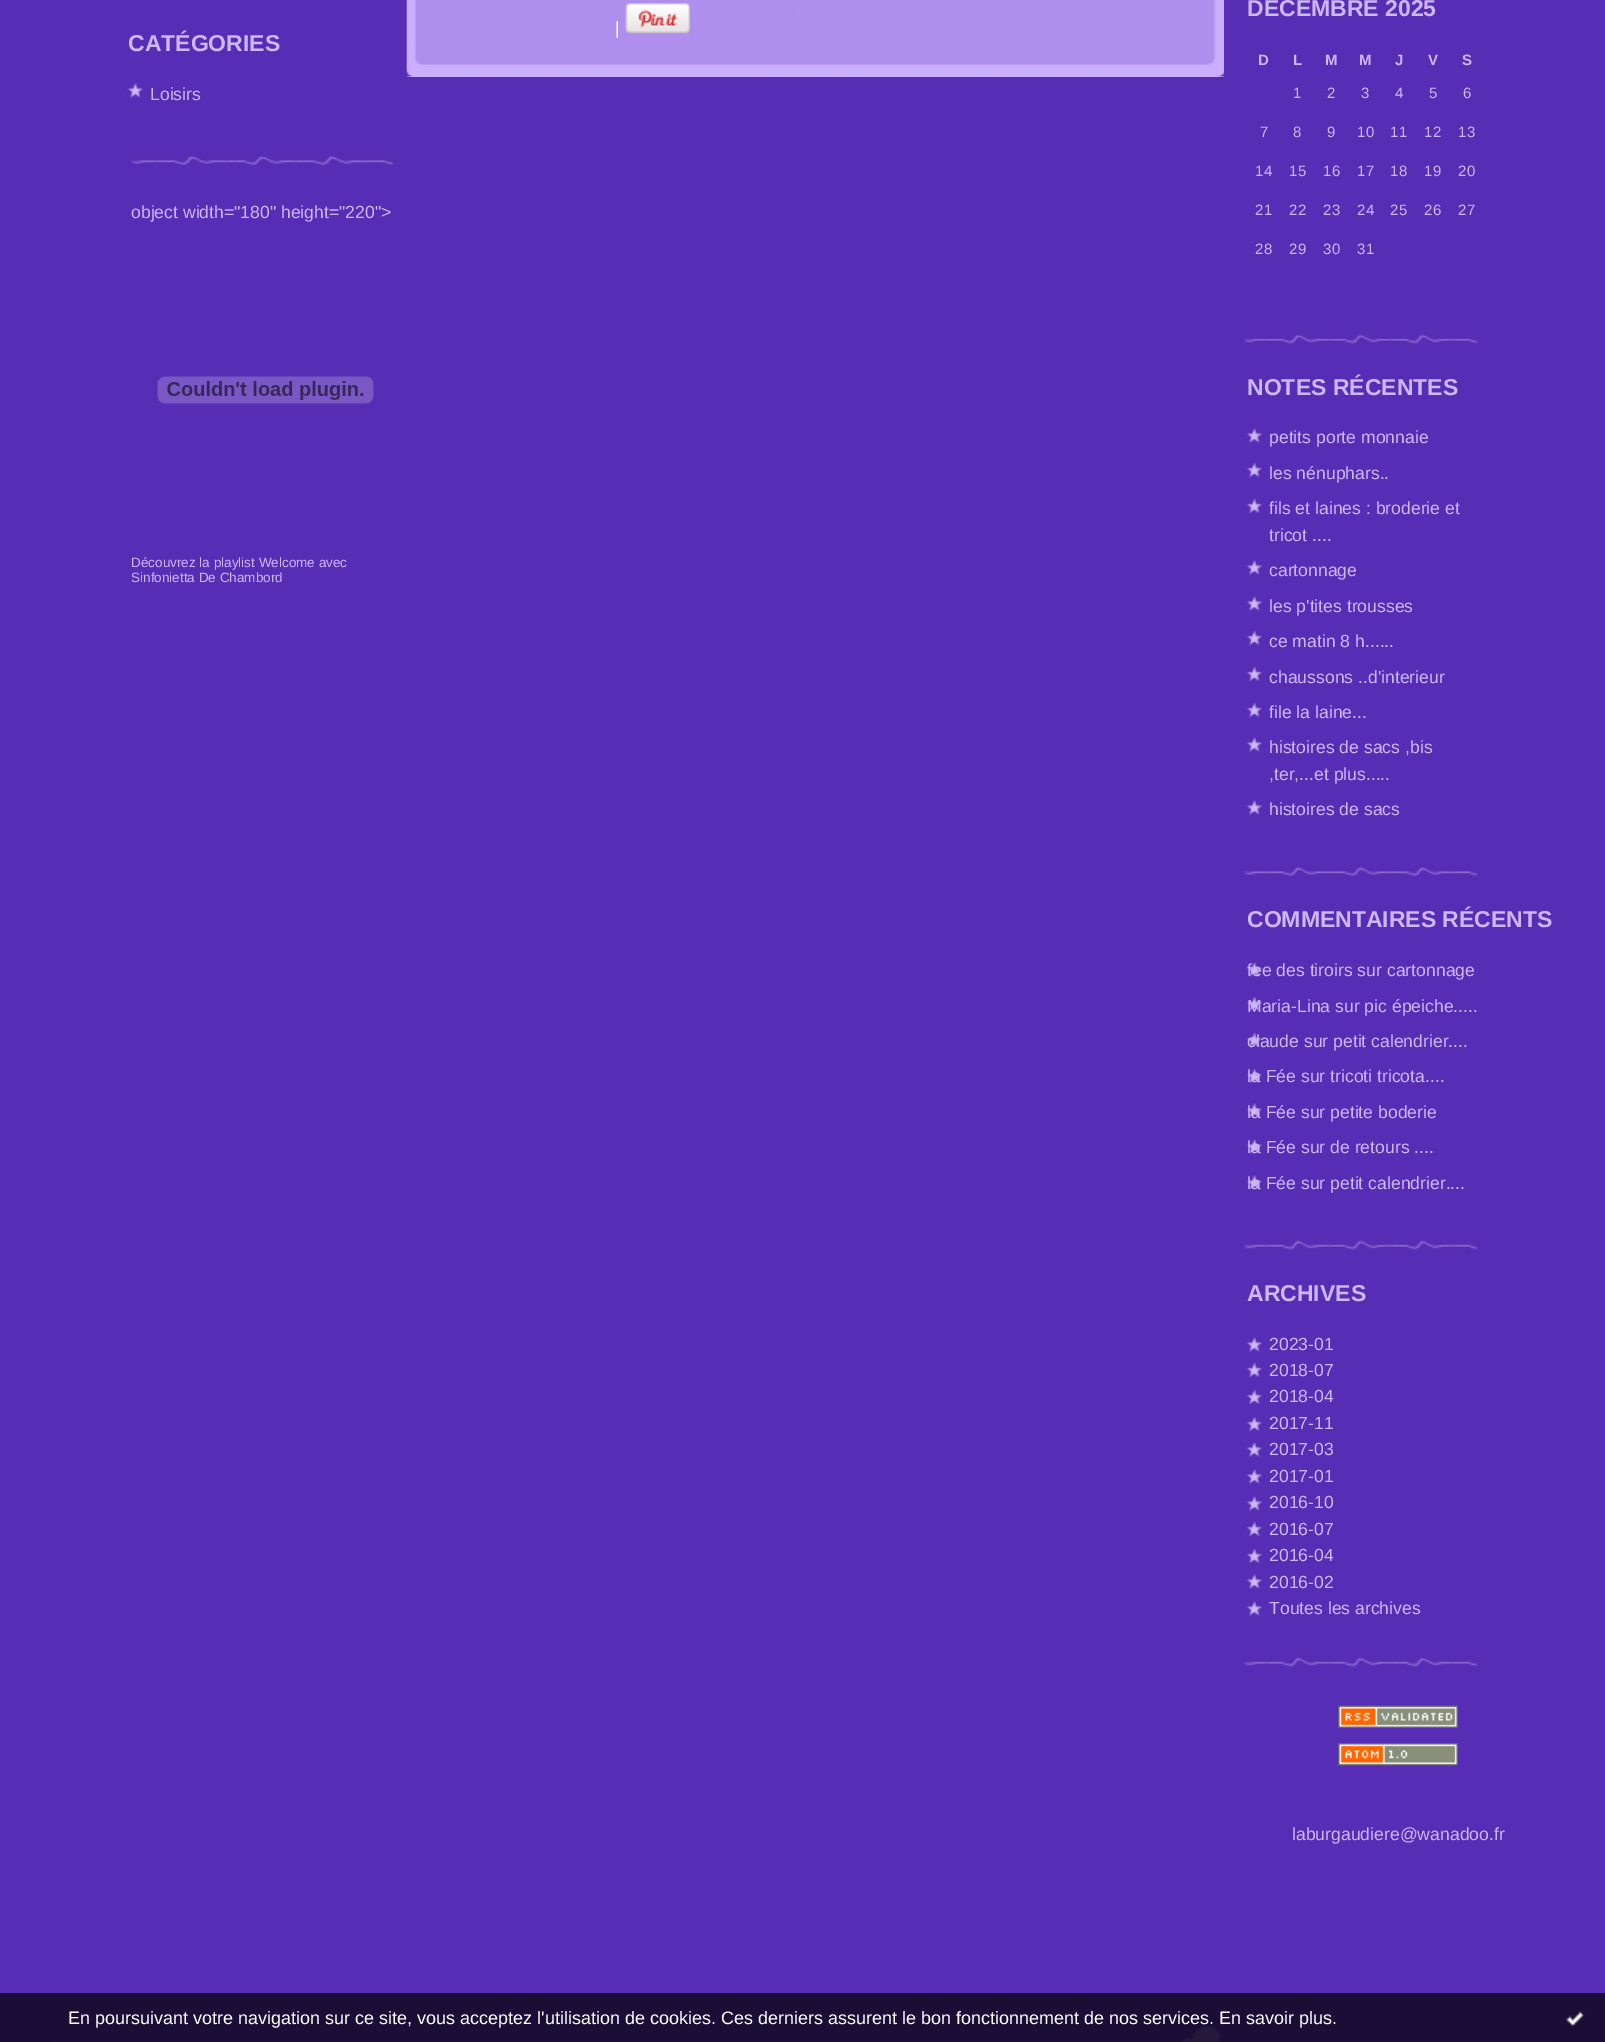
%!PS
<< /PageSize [1605 2042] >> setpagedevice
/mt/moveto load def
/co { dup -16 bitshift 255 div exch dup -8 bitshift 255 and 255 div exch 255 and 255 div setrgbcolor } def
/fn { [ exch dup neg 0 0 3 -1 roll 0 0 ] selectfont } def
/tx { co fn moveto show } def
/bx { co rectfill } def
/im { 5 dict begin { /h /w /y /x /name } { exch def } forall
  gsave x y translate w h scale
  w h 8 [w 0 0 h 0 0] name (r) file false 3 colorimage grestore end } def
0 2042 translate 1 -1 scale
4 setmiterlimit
0 0 1605 2042 16#582DB5 bx
0 1993 1605 49 16#1A0E36 bx
(media/1.raw) 52 2025 1501 17 im
(media/2.raw) 130 156 264 9 im
(media/3.raw) 127 83 16 15 im
(media/4.raw) 157 376 217 28 im
407 76 817 1 16#CBAFFF bx
(media/5.raw) 406 0 818 77 im
(media/6.raw) 625 3 65 31 im
(media/7.raw) 1243 334 235 10 im
(media/8.raw) 1243 867 235 9 im
(media/3.raw) 1246 428 16 15 im
(media/9.raw) 1246 462 16 15 im
(media/9.raw) 1246 498 16 15 im
(media/3.raw) 1246 560 16 15 im
(media/3.raw) 1246 596 16 15 im
(media/9.raw) 1246 630 16 15 im
(media/9.raw) 1246 666 16 15 im
(media/9.raw) 1246 702 16 15 im
(media/3.raw) 1246 737 16 15 im
(media/3.raw) 1246 800 16 15 im
(media/7.raw) 1243 1240 235 10 im
(media/3.raw) 1246 962 16 15 im
(media/9.raw) 1246 996 16 15 im
(media/9.raw) 1246 1032 16 15 im
(media/9.raw) 1246 1068 16 15 im
(media/3.raw) 1246 1103 16 15 im
(media/3.raw) 1246 1139 16 15 im
(media/3.raw) 1246 1175 16 15 im
(media/7.raw) 1243 1657 235 10 im
(media/3.raw) 1246 1337 16 15 im
(media/9.raw) 1246 1362 16 15 im
(media/9.raw) 1246 1389 16 15 im
(media/9.raw) 1246 1416 16 15 im
(media/3.raw) 1246 1442 16 15 im
(media/3.raw) 1246 1469 16 15 im
(media/3.raw) 1246 1496 16 15 im
(media/9.raw) 1246 1521 16 15 im
(media/9.raw) 1246 1548 16 15 im
(media/3.raw) 1246 1574 16 15 im
(media/3.raw) 1246 1601 16 15 im
(media/10.raw) 1338 1705 120 23 im
(media/11.raw) 1338 1743 120 23 im
(media/12.raw) 1566 2011 19 15 im
(CATÉGORIES) 128 51 /LiberationSans-Bold 23 16#CDB8F6 tx
(Loisirs) 150 100 /LiberationSans-Regular 17.6 16#CDB8F6 tx
(object width="180" height="220">) 131 218 /LiberationSans-Regular 17.6 16#CDB8F6 tx
(Découvrez la playlist Welcome avec) 131 567 /LiberationSans-Regular 13.5 16#CDB8F6 tx
(Sinfonietta De Chambord) 131 582 /LiberationSans-Regular 13.5 16#CDB8F6 tx
(|) 615 34 /LiberationSans-Regular 17.6 16#FFFFFF tx
(DÉCEMBRE 2025) 1247 16 /LiberationSans-Bold 23 16#CDB8F6 tx
/LiberationSans-Bold 15 fn
1258 65 mt 2 0 (D) ashow
1293 65 mt 2 0 (L) ashow
1325 65 mt 2 0 (M) ashow
1359 65 mt 2 0 (M) ashow
1395 65 mt 2 0 (J) ashow
1428 65 mt 2 0 (V) ashow
1462 65 mt 2 0 (S) ashow
/LiberationSans-Regular 15 fn
1293 98 mt 1 0 (1) ashow
1327 98 mt 1 0 (2) ashow
1361 98 mt 1 0 (3) ashow
1395 98 mt 1 0 (4) ashow
1429 98 mt 1 0 (5) ashow
1463 98 mt 1 0 (6) ashow
1260 137 mt 1 0 (7) ashow
1293 137 mt 1 0 (8) ashow
1327 137 mt 1 0 (9) ashow
1357 137 mt 1 0 (10) ashow
1390 137 mt 1 0 (11) ashow
1424 137 mt 1 0 (12) ashow
1458 137 mt 1 0 (13) ashow
1255 176 mt 1 0 (14) ashow
1289 176 mt 1 0 (15) ashow
1323 176 mt 1 0 (16) ashow
1357 176 mt 1 0 (17) ashow
1390 176 mt 1 0 (18) ashow
1424 176 mt 1 0 (19) ashow
1458 176 mt 1 0 (20) ashow
1255 215 mt 1 0 (21) ashow
1289 215 mt 1 0 (22) ashow
1323 215 mt 1 0 (23) ashow
1357 215 mt 1 0 (24) ashow
1390 215 mt 1 0 (25) ashow
1424 215 mt 1 0 (26) ashow
1458 215 mt 1 0 (27) ashow
1255 254 mt 1 0 (28) ashow
1289 254 mt 1 0 (29) ashow
1323 254 mt 1 0 (30) ashow
1357 254 mt 1 0 (31) ashow
(NOTES RÉCENTES) 1247 395 /LiberationSans-Bold 23 16#CDB8F6 tx
(petits porte monnaie) 1269 443 /LiberationSans-Regular 17.6 16#CDB8F6 tx
(les nénuphars..) 1269 479 /LiberationSans-Regular 17.6 16#CDB8F6 tx
(fils et laines : broderie et) 1269 514 /LiberationSans-Regular 17.6 16#CDB8F6 tx
(tricot ....) 1269 541 /LiberationSans-Regular 17.6 16#CDB8F6 tx
(cartonnage) 1269 576 /LiberationSans-Regular 17.6 16#CDB8F6 tx
(les p'tites trousses) 1269 612 /LiberationSans-Regular 17.6 16#CDB8F6 tx
(ce matin 8 h......) 1269 647 /LiberationSans-Regular 17.6 16#CDB8F6 tx
(chaussons ..d'interieur) 1269 683 /LiberationSans-Regular 17.6 16#CDB8F6 tx
(file la laine...) 1269 718 /LiberationSans-Regular 17.6 16#CDB8F6 tx
(histoires de sacs ,bis) 1269 753 /LiberationSans-Regular 17.6 16#CDB8F6 tx
(,ter,...et plus.....) 1269 780 /LiberationSans-Regular 17.6 16#CDB8F6 tx
(histoires de sacs) 1269 815 /LiberationSans-Regular 17.6 16#CDB8F6 tx
(COMMENTAIRES RÉCENTS) 1247 927 /LiberationSans-Bold 23 16#CDB8F6 tx
(fee des tiroirs sur cartonnage) 1247 976 /LiberationSans-Regular 17.6 16#CDB8F6 tx
(Maria-Lina sur pic épeiche.....) 1247 1012 /LiberationSans-Regular 17.6 16#CDB8F6 tx
(claude sur petit calendrier....) 1247 1047 /LiberationSans-Regular 17.6 16#CDB8F6 tx
(la Fée sur tricoti tricota....) 1247 1082 /LiberationSans-Regular 17.6 16#CDB8F6 tx
(la Fée sur petite boderie) 1247 1118 /LiberationSans-Regular 17.6 16#CDB8F6 tx
(la Fée sur de retours ....) 1247 1153 /LiberationSans-Regular 17.6 16#CDB8F6 tx
(la Fée sur petit calendrier....) 1247 1189 /LiberationSans-Regular 17.6 16#CDB8F6 tx
(ARCHIVES) 1247 1301 /LiberationSans-Bold 23 16#CDB8F6 tx
(2023-01) 1269 1350 /LiberationSans-Regular 17.6 16#CDB8F6 tx
(2018-07) 1269 1376 /LiberationSans-Regular 17.6 16#CDB8F6 tx
(2018-04) 1269 1402 /LiberationSans-Regular 17.6 16#CDB8F6 tx
(2017-11) 1269 1429 /LiberationSans-Regular 17.6 16#CDB8F6 tx
(2017-03) 1269 1455 /LiberationSans-Regular 17.6 16#CDB8F6 tx
(2017-01) 1269 1482 /LiberationSans-Regular 17.6 16#CDB8F6 tx
(2016-10) 1269 1508 /LiberationSans-Regular 17.6 16#CDB8F6 tx
(2016-07) 1269 1535 /LiberationSans-Regular 17.6 16#CDB8F6 tx
(2016-04) 1269 1561 /LiberationSans-Regular 17.6 16#CDB8F6 tx
(2016-02) 1269 1588 /LiberationSans-Regular 17.6 16#CDB8F6 tx
(Toutes les archives) 1269 1614 /LiberationSans-Regular 17.6 16#CDB8F6 tx
(laburgaudiere@wanadoo.fr) 1292 1840 /LiberationSans-Regular 17.6 16#CDB8F6 tx
(En poursuivant votre navigation sur ce site, vous acceptez l'utilisation de cookies. Ces derniers assurent le bon fonctionnement de nos services. En savoir plus.) 68 2024 /LiberationSans-Regular 18 16#FFFFFF tx
showpage
